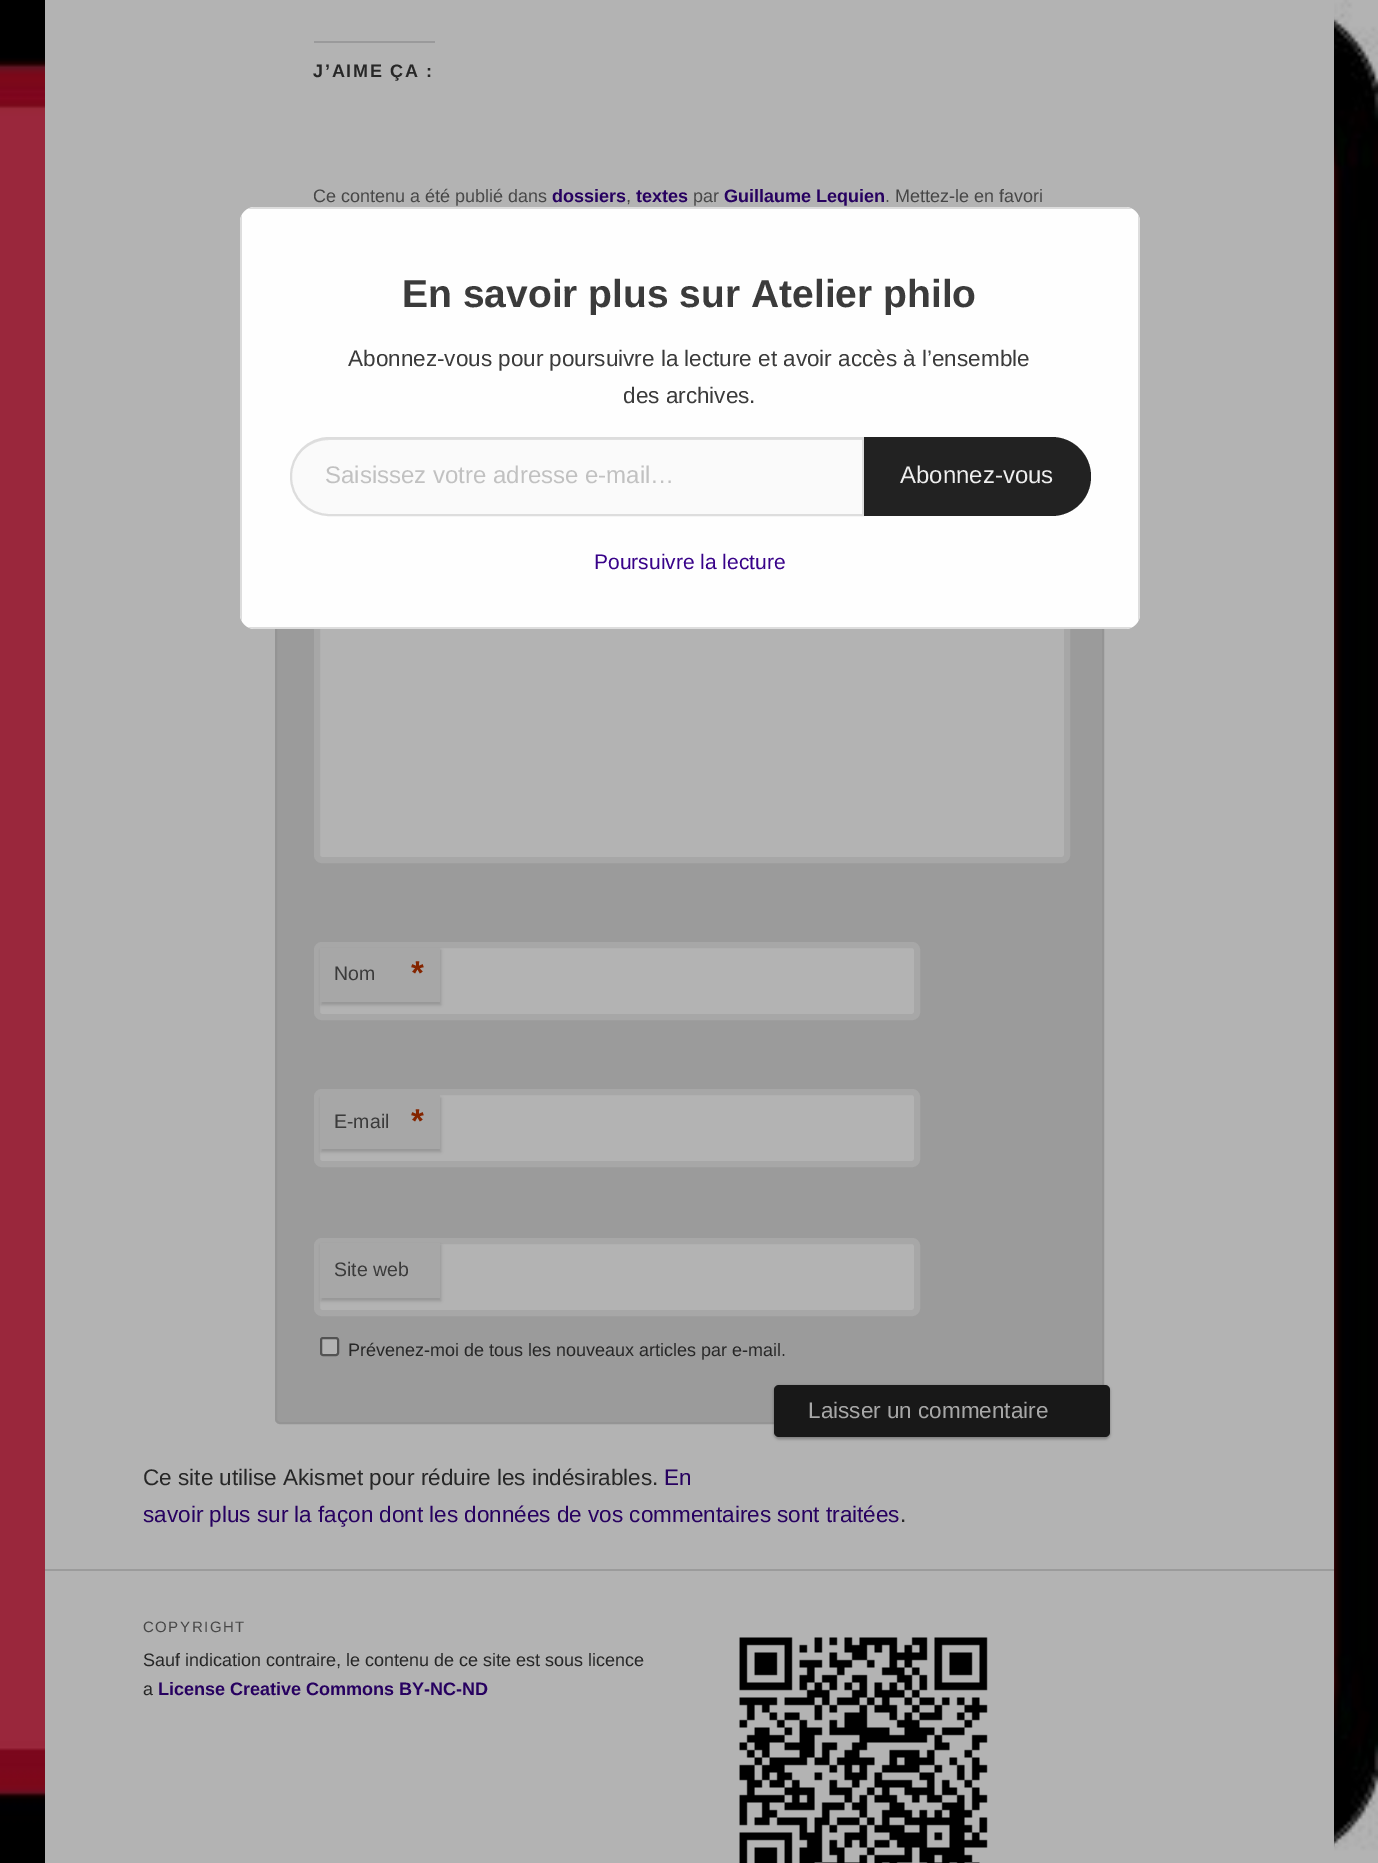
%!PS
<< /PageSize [1378 1863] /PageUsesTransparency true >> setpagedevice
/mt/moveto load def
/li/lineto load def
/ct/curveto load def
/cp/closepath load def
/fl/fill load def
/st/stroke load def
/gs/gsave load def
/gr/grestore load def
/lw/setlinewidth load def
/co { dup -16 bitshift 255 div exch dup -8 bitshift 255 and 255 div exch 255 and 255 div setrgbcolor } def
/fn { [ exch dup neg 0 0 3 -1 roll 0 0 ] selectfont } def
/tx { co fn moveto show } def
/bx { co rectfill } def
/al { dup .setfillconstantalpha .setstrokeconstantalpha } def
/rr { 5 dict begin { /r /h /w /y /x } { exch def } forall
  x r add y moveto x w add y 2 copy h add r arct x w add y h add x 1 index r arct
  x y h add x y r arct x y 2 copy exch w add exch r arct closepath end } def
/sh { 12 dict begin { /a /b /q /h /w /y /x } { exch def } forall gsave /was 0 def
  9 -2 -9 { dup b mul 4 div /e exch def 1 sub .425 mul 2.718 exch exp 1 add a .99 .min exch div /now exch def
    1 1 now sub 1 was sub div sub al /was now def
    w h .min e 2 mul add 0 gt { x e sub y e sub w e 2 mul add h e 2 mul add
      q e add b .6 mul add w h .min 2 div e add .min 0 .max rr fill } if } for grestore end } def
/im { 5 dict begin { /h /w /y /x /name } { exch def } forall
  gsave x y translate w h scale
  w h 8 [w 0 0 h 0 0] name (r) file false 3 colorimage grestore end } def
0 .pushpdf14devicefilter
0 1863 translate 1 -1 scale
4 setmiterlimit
0 0 1378 1863 16#FFFFFF bx
(media/1.raw) 0 0 1378 1863 im
45 0 1289 1863 16#B3B3B3 bx
314 41 121 2 16#9A9A9B bx
16#9B9B9B co
276 274 827 1149 4 rr gs fl gr
16#949494 co
2 lw
st
16#B3B3B3 co
317 531 750 329 5 rr gs fl gr
16#A7A7A7 co
6 lw
st
16#B3B3B3 co
317 945 600 72 5 rr gs fl gr
16#A7A7A7 co
st
16#8F8F8F co
321 950 120 55 0 1.5 .8 sh
320 948 120 54 16#A7A7A7 bx
16#B3B3B3 co
317 1092 600 72 5 rr gs fl gr
16#A7A7A7 co
st
16#8F8F8F co
321 1098 120 54 0 1.5 .8 sh
320 1095 120 54 16#A7A7A7 bx
16#B3B3B3 co
317 1241 600 72 5 rr gs fl gr
16#A7A7A7 co
st
16#8F8F8F co
321 1245 120 56 0 1.5 .8 sh
320 1243 120 55 16#A7A7A7 bx
16#B3B3B3 co
321 1338 17 17 2 rr gs fl gr
16#535353 co
2 lw
st
16#000000 co
774 1386 336 53 5 1.5 .3 sh
16#181818 co
774 1385 336 52 5 rr fl
45 1569 1289 2 16#9B9B9B bx
(media/2.raw) 739 1637 249 226 im
16#FEFEFE co
240 207 900 422 15 rr fl
16#DDDDDD co
240 222 mt 240 614 li 240 617 241 619 242 621 ct 242 215 li 241 217 240 219 240 222 ct cp 255 207 mt 252 207 250 208 248 209 ct 1132 209 li 1130 208 1128 207 1125 207 ct cp 1140 222 mt 1140 219 1139 217 1138 215 ct 1138 621 li 1139 619 1140 617 1140 614 ct cp 1125 629 mt 1128 629 1130 628 1132 627 ct 248 627 li 250 628 252 629 255 629 ct cp eofill
16#FAFAFA co
329.5 437 mt 864 437 li 864 516 li 329.5 516 li 307.5 516 290 498.5 290 476.5 ct 290 454.5 307.5 437 329.5 437 ct cp fl
16#E1E1E1 co
329 440 mt 862 440 li 862 515 li 863 515 li 863 438 li 330 438 li 308 438 291 456 291 477 ct 291 457 308 440 329 440 ct cp fl
16#DDDDDD co
329.5 438 mt 863 438 li 863 515 li 329.5 515 li 308 515 291 498 291 476.5 ct 291 455 308 438 329.5 438 ct cp st
16#222222 co
864 437 mt 1051.5 437 li 1073.5 437 1091 454.5 1091 476.5 ct 1091 498.5 1073.5 516 1051.5 516 ct 864 516 li cp fl
/LiberationSans-Bold 18 fn
16#272727 co
313 77 mt 1.75 0 (J’AIME ÇA :) ashow
(Ce contenu a été publié dans) 313 202 /LiberationSans-Regular 18 16#474747 tx
(dossiers) 552 202 /LiberationSans-Bold 18 16#270160 tx
(,) 626 202 /LiberationSans-Regular 18 16#474747 tx
(textes) 636 202 /LiberationSans-Bold 18 16#270160 tx
(par) 693 202 /LiberationSans-Regular 18 16#474747 tx
(Guillaume Lequien) 724 202 /LiberationSans-Bold 18 16#270160 tx
(. Mettez-le en favori) 885 202 /LiberationSans-Regular 18 16#474747 tx
(Nom) 334 980 /LiberationSans-Regular 19.5 16#3B3B3B tx
(*) 411 984 /LiberationSans-Bold 33 16#842500 tx
(E-mail) 334 1128 /LiberationSans-Regular 19.5 16#3B3B3B tx
(*) 411 1132 /LiberationSans-Bold 33 16#842500 tx
(Site web) 334 1276 /LiberationSans-Regular 19.5 16#3B3B3B tx
(Prévenez-moi de tous les nouveaux articles par e-mail.) 348 1356 /LiberationSans-Regular 18 16#272727 tx
(Laisser un commentaire) 808 1418 /LiberationSans-Regular 22.5 16#A7A7A7 tx
(Ce site utilise Akismet pour réduire les indésirables.) 143 1485 /LiberationSans-Regular 22.5 16#272727 tx
(En) 664 1485 /LiberationSans-Regular 22.5 16#270160 tx
(savoir plus sur la façon dont les données de vos commentaires sont traitées) 143 1522 /LiberationSans-Regular 22.5 16#270160 tx
(.) 900 1522 /LiberationSans-Regular 22.5 16#272727 tx
/LiberationSans-Regular 15 fn
16#474747 co
143 1632 mt 1.5 0 (COPYRIGHT) ashow
(Sauf indication contraire, le contenu de ce site est sous licence) 143 1666 /LiberationSans-Regular 18 16#272727 tx
(a) 143 1695 /LiberationSans-Regular 18 16#272727 tx
(License Creative Commons BY-NC-ND) 158 1695 /LiberationSans-Bold 18 16#270160 tx
(En savoir plus sur Atelier philo) 402 307 /LiberationSans-Bold 39 16#3B3B3B tx
(Abonnez-vous pour poursuivre la lecture et avoir accès à l’ensemble) 348 366 /LiberationSans-Regular 22.5 16#3B3B3B tx
(des archives.) 623 403 /LiberationSans-Regular 22.5 16#3B3B3B tx
(Saisissez votre adresse e-mail…) 325 483 /LiberationSans-Regular 24 16#C1C1C1 tx
(Abonnez-vous) 900 483 /LiberationSans-Regular 24 16#EEEEEE tx
(Poursuivre la lecture) 594 569 /LiberationSans-Regular 21 16#380289 tx
.poppdf14devicefilter showpage
